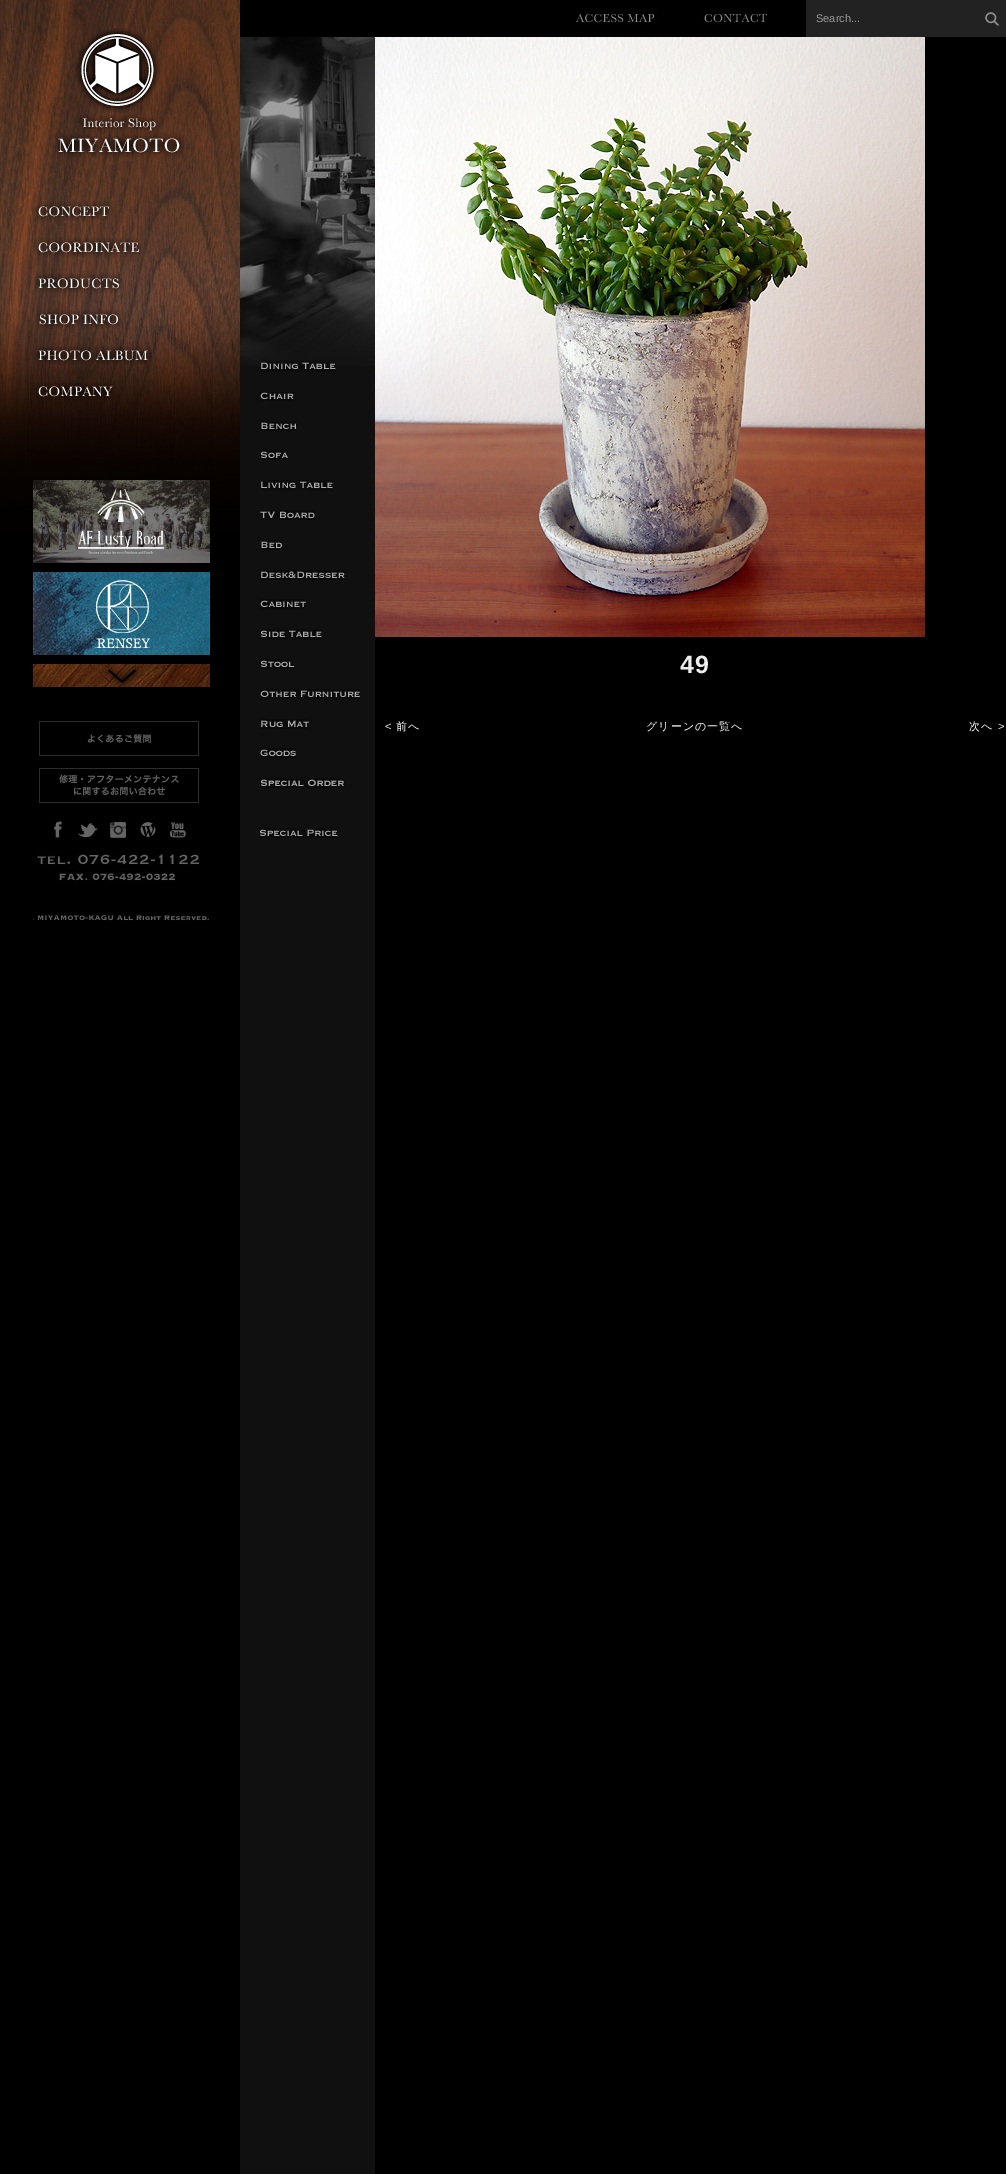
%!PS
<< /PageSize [1006 2174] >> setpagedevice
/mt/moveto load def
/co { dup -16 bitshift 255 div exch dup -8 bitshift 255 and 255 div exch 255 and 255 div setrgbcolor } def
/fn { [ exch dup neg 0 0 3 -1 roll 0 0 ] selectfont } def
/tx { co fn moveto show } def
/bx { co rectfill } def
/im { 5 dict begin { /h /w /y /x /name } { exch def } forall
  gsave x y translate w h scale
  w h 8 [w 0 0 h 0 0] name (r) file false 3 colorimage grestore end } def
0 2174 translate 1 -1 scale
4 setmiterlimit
0 0 1006 2174 16#000000 bx
(media/1.raw) 0 0 240 1050 im
(media/2.raw) 55 28 130 130 im
(media/3.raw) 33 201 79 20 im
(media/4.raw) 33 237 110 21 im
(media/5.raw) 34 273 90 20 im
(media/6.raw) 35 309 88 20 im
(media/7.raw) 34 346 117 19 im
(media/8.raw) 35 383 79 17 im
(media/9.raw) 33 480 177 83 im
(media/10.raw) 33 572 177 83 im
(media/11.raw) 33 664 177 23 im
(media/12.raw) 39 721 160 35 im
(media/13.raw) 39 768 160 35 im
(media/14.raw) 54 821 8 17 im
(media/15.raw) 78 823 20 15 im
(media/16.raw) 110 822 16 16 im
(media/17.raw) 140 822 16 15 im
(media/18.raw) 169 822 17 16 im
(media/19.raw) 37 851 162 31 im
(media/20.raw) 33 913 176 8 im
(media/21.raw) 575 8 84 15 im
(media/22.raw) 701 10 66 14 im
806 0 200 37 16#222222 bx
(media/23.raw) 981 9 18 17 im
240 366 135 1808 16#101010 bx
(media/24.raw) 240 37 135 329 im
(media/25.raw) 260 360 76 12 im
(media/26.raw) 260 392 34 9 im
(media/27.raw) 260 421 37 10 im
(media/28.raw) 260 450 28 10 im
(media/29.raw) 261 480 72 11 im
(media/30.raw) 260 510 55 10 im
(media/31.raw) 260 540 22 10 im
(media/32.raw) 260 570 85 10 im
(media/33.raw) 260 599 46 11 im
(media/34.raw) 260 629 62 11 im
(media/35.raw) 260 659 34 10 im
(media/36.raw) 260 689 100 10 im
(media/37.raw) 260 719 49 10 im
(media/38.raw) 260 748 36 10 im
(media/39.raw) 260 778 85 10 im
(media/40.raw) 259 828 79 10 im
(media/41.raw) 375 37 550 600 im
(Search...) 816 22 /LiberationSans-Regular 11 16#999999 tx
/LiberationSans-Bold 25 fn
16#EEEEEE co
680 673 mt 1 0 (49) ashow
/LiberationSans-Regular 11 fn
385 730 mt 1 0 (<) ashow
/WenQuanYiZenHei-Medium 11 fn
16#FFFFFF co
396 730 mt 1 0 (前へ) ashow
646 730 mt 1 0 (グリーンの一覧へ) ashow
969 730 mt 1 0 (次へ) ashow
/LiberationSans-Regular 11 fn
16#EEEEEE co
998 730 mt 1 0 (>) ashow
showpage
